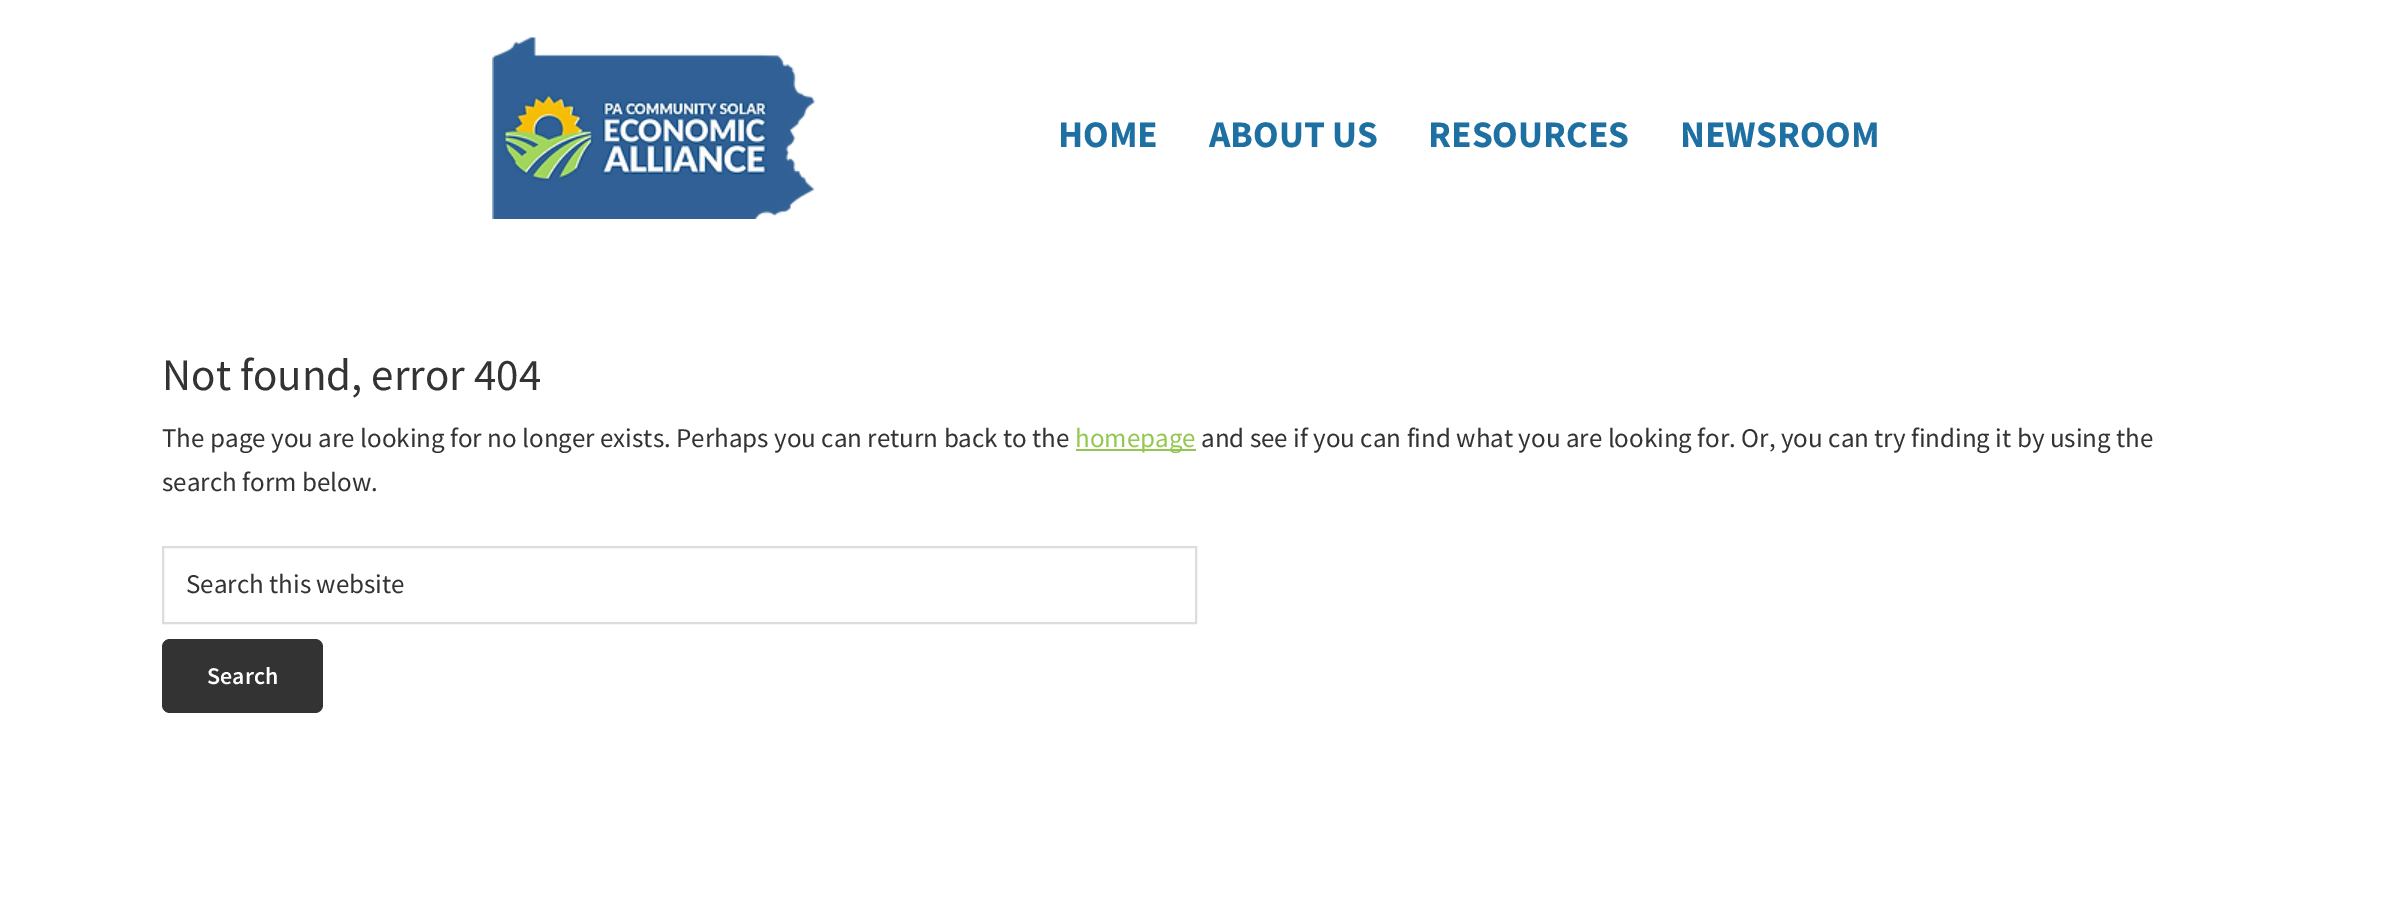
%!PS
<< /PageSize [2394 900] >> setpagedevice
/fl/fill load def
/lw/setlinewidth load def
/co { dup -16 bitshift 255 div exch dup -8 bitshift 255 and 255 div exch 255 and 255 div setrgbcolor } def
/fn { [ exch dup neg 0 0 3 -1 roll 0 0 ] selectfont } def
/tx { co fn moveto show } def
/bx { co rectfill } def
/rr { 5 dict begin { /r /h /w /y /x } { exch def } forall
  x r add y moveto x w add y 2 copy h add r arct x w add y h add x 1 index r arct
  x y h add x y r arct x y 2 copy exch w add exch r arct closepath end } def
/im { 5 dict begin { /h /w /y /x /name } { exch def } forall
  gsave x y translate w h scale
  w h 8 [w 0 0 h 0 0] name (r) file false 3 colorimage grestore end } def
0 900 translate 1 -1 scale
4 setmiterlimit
0 0 2394 900 16#FFFFFF bx
(media/1.raw) 492 37 323 182 im
1076 449 120 2 16#93C74F bx
16#DDDDDD co
2 lw
163 547 1033 76 rectstroke
16#333333 co
162 639 161 74 8 rr fl
(HOME) 1058 147 /SourceSansPro-Bold 37.5 16#1E70A2 tx
(ABOUT US) 1209 147 /SourceSansPro-Bold 37.5 16#1E70A2 tx
(RESOURCES) 1428 147 /SourceSansPro-Bold 37.5 16#1E70A2 tx
(NEWSROOM) 1680 147 /SourceSansPro-Bold 37.5 16#1E70A2 tx
(Not found, error 404) 162 390 /SourceSansPro-Regular 45 16#333333 tx
(The page you are looking for no longer exists. Perhaps you can return back to the) 162 447 /SourceSansPro-Regular 27 16#333333 tx
(homepage) 1075 447 /SourceSansPro-Regular 27 16#93C74F tx
(and see if you can find what you are looking for. Or, you can try finding it by using the) 1201 447 /SourceSansPro-Regular 27 16#333333 tx
(search form below.) 162 491 /SourceSansPro-Regular 27 16#333333 tx
(Search this website) 186 593 /SourceSansPro-Regular 27 16#333333 tx
(Search) 207 684 /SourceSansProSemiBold-SemiBold 24 16#FFFFFF tx
showpage
